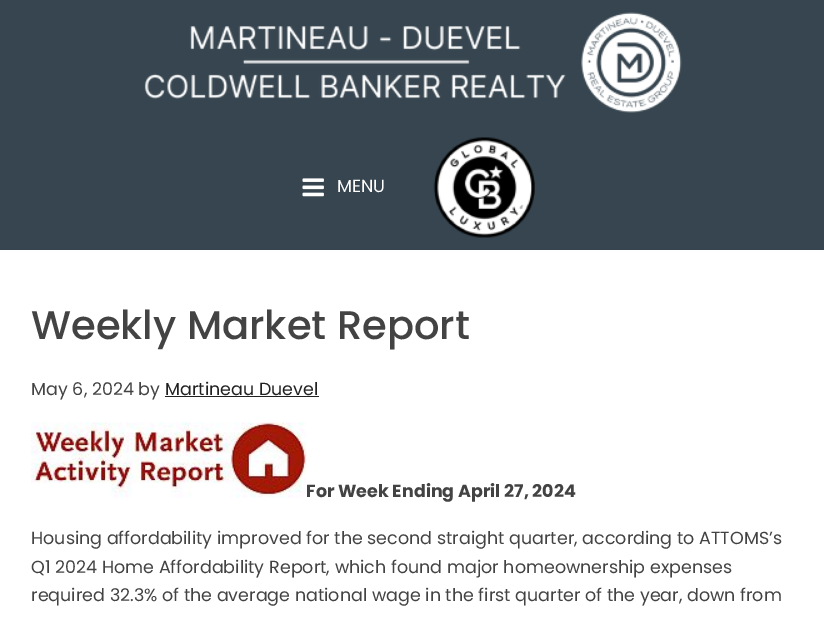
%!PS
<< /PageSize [824 617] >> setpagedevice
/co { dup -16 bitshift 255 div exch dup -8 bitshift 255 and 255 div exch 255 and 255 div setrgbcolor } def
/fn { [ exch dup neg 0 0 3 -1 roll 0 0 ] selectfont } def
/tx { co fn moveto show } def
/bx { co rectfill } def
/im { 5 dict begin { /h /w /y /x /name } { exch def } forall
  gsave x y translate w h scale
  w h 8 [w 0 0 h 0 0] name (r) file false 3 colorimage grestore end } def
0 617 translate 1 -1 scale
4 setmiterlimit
0 0 824 617 16#FFFFFF bx
0 0 824 250 16#36454F bx
(media/1.raw) 144 12 538 101 im
(media/2.raw) 302 178 22 19 im
(media/3.raw) 433 137 102 101 im
165 396 154 1 16#212121 bx
(media/4.raw) 31 422 276 76 im
(MENU) 337 192 /Poppins-Regular 17.5 16#FFFFFF tx
(Weekly Market Report) 31 339 /Poppins-Medium 40 16#434343 tx
(May 6, 2024 by) 31 395 /Poppins-Regular 17.5 16#434343 tx
(Martineau Duevel) 165 395 /Poppins-Regular 17.5 16#212121 tx
(For Week Ending April 27, 2024) 306 497 /Poppins-Bold 17.5 16#434343 tx
(Housing affordability improved for the second straight quarter, according to ATTOMS’s) 31 544 /Poppins-Regular 17.5 16#434343 tx
(Q1 2024 Home Affordability Report, which found major homeownership expenses) 31 573 /Poppins-Regular 17.5 16#434343 tx
(required 32.3% of the average national wage in the first quarter of the year, down from) 31 601 /Poppins-Regular 17.5 16#434343 tx
showpage
